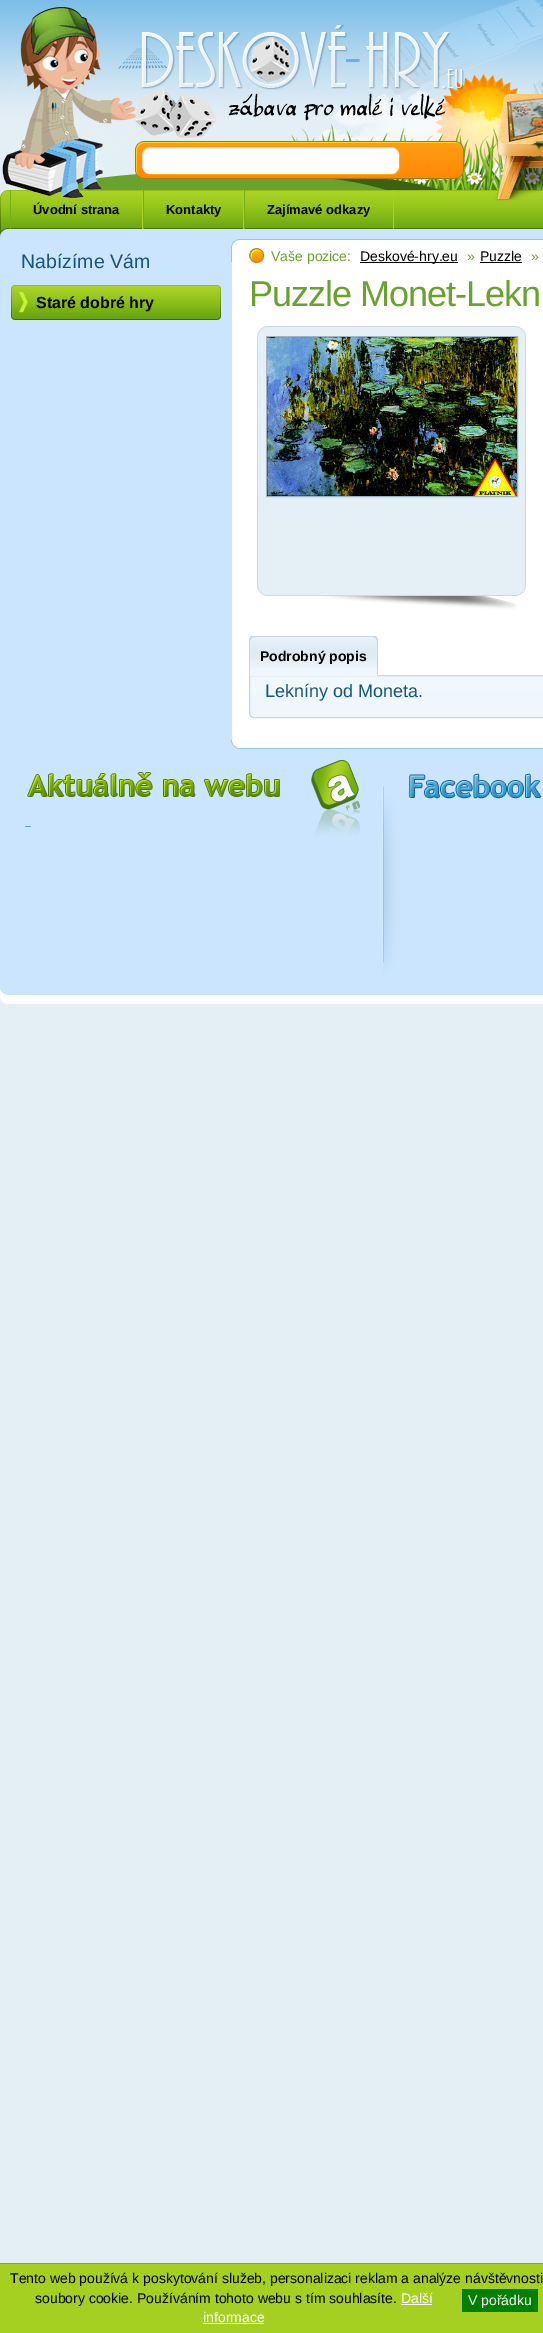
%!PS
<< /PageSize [543 2333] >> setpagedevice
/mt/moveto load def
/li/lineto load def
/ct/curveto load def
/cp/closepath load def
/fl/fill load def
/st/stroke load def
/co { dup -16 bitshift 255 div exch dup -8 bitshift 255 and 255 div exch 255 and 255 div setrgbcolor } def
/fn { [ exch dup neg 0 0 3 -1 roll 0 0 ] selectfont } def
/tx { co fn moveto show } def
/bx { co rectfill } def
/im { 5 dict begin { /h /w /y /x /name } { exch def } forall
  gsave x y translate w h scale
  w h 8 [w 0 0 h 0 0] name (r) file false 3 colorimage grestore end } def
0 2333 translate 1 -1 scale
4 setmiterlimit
0 0 543 2333 16#E3EEF5 bx
(media/1.raw) 0 0 2 190 im
(media/2.raw) 2 0 541 190 im
(media/3.raw) 118 25 346 96 im
232 262 311 478 16#FFFFFF bx
0 262 232 478 16#CAE5FD bx
(media/4.raw) 0 190 543 72 im
142 190 1 39 16#A8D223 bx
10 190 1 39 16#76B013 bx
243 190 1 39 16#A8D223 bx
143 190 1 39 16#76B013 bx
393 190 1 39 16#A8D223 bx
244 190 1 39 16#76B013 bx
(media/5.raw) 11 285 210 35 im
(media/6.raw) 249 248 16 16 im
360 262 98 1 16#000000 bx
480 262 42 1 16#000000 bx
(media/7.raw) 257 326 269 285 im
16#9DB4C5 co
266.5 336.5 251 160 rectstroke
(media/8.raw) 267 337 250 159 im
(media/10.raw) 249 676 294 42 im
16#C6D7E2 co
249.5 675.5 mt 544 675.5 li 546.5 675.5 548.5 677.5 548.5 680 ct 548.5 713 li 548.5 715.5 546.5 717.5 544 717.5 ct 254 717.5 li 251.5 717.5 249.5 715.5 249.5 713 ct cp st
16#F0F7FC co
254 636 mt 373 636 li 376 636 378 638 378 641 ct 378 676 li 249 676 li 249 641 li 249 638 251 636 254 636 ct cp fl
(media/9.raw) 249 637 129 31 im
16#C6D7E2 co
254 636 mt 252 636 251 636 250 637 ct 251 638 li 254 637 li 373 637 li 376 638 li 377 637 li 376 636 374 636 373 636 ct cp fl
378 676 mt 378 641 li 378 639.5 377.5 638 376.5 637.5 ct 376 638 li 376.5 639 377 640 377 641 ct 377 675 li cp fl
16#F0F7FC co
378 676 mt 377 675 li 250 675 li 249 676 li cp fl
16#C6D7E2 co
249 676 mt 250 675 li 250 641 li 250 640 250.5 639 251 638 ct 250.5 637.5 li 249.5 638 249 639.5 249 641 ct cp fl
(media/11.raw) 0 740 543 264 im
(media/12.raw) 25 826 6 1 im
0 2264 543 69 16#A5D022 bx
0 2263 543 1 16#7BB214 bx
401 2304 31 1 16#FFFFFF bx
462 2289 76 23 16#008000 bx
203 2323 61 1 16#FFFFFF bx
(Úvodní strana) 33 214 /LiberationSans-Bold 13 16#000000 tx
(Kontakty) 166 214 /LiberationSans-Bold 13 16#000000 tx
(Zajímavé odkazy) 267 214 /LiberationSans-Bold 13 16#000000 tx
(Nabízíme Vám) 21 268 /LiberationSans-Regular 19.5 16#18557D tx
(Staré dobré hry) 36 308 /LiberationSans-Bold 16 16#000000 tx
(Vaše pozice:) 271 261 /LiberationSans-Regular 14 16#6AA22E tx
(Deskové-hry.eu) 360 261 /LiberationSans-Regular 14 16#000000 tx
(») 467 261 /LiberationSans-Regular 14 16#6AA22E tx
(Puzzle) 480 261 /LiberationSans-Regular 14 16#000000 tx
(») 531 261 /LiberationSans-Regular 14 16#6AA22E tx
/LiberationSans-Regular 36 fn
249 306 mt -1 0 (Puzzle Monet-Lekn) ashow
(Podrobný popis) 260 661 /LiberationSans-Bold 14 16#000000 tx
(Lekníny od Moneta.) 265 697 /LiberationSans-Regular 18 16#18557D tx
(Tento web používá k poskytování služeb, personalizaci reklam a analýze návštěvnosti) 10 2283 /LiberationSans-Regular 14 16#000000 tx
(soubory cookie. Používáním tohoto webu s tím souhlasíte.) 35 2303 /LiberationSans-Regular 14 16#000000 tx
(Další) 401 2303 /LiberationSans-Regular 14 16#FFFFFF tx
(V pořádku) 468 2305 /LiberationSans-Regular 14 16#FFFFFF tx
(informace) 203 2322 /LiberationSans-Regular 14 16#FFFFFF tx
showpage
